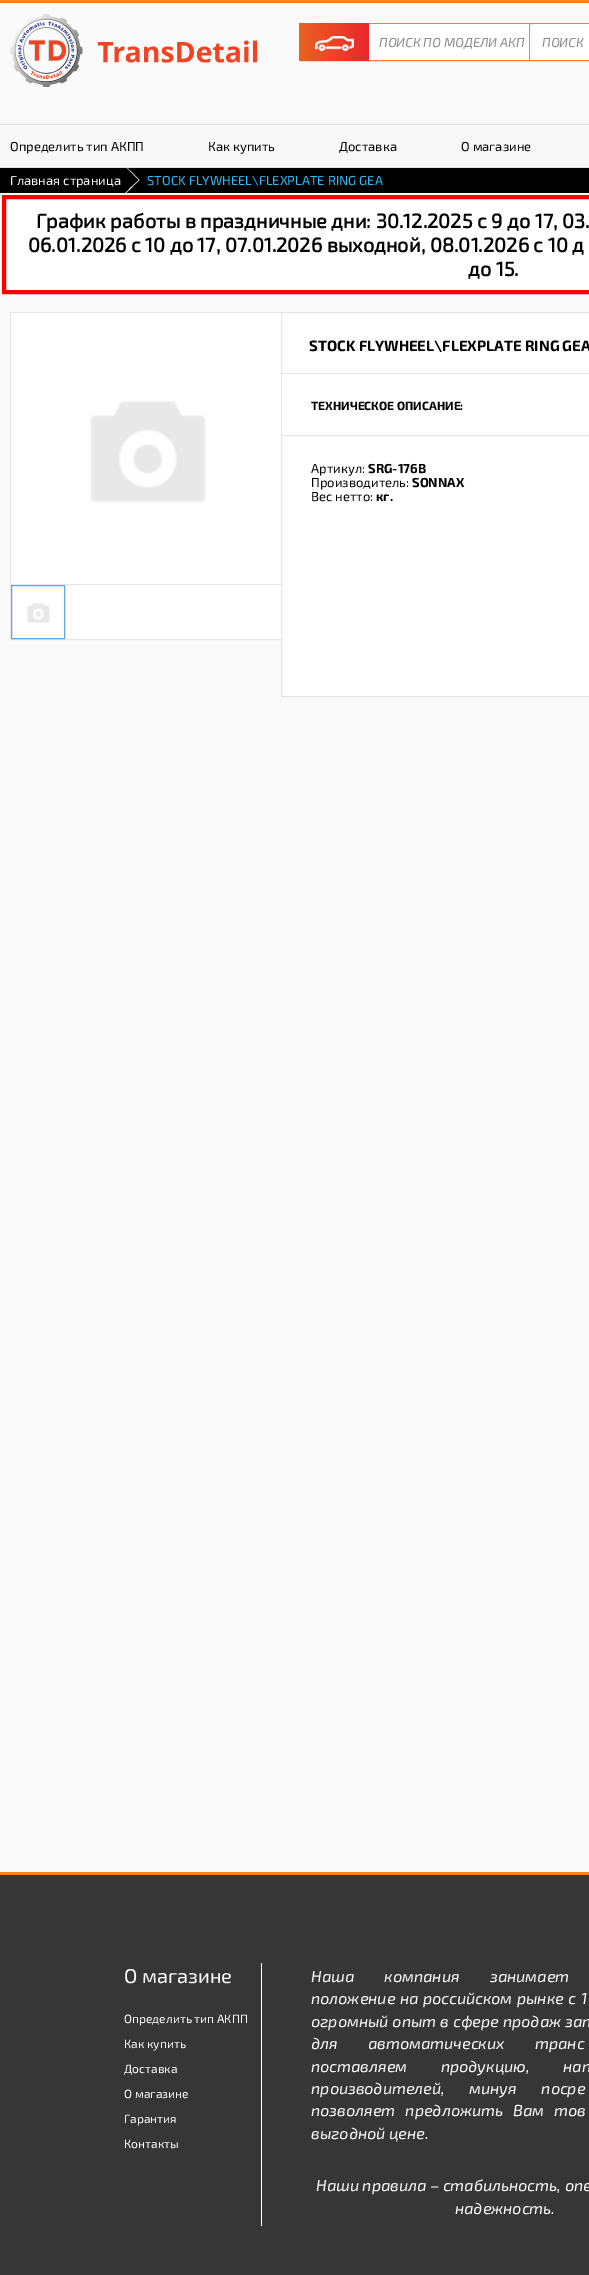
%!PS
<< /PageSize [589 2275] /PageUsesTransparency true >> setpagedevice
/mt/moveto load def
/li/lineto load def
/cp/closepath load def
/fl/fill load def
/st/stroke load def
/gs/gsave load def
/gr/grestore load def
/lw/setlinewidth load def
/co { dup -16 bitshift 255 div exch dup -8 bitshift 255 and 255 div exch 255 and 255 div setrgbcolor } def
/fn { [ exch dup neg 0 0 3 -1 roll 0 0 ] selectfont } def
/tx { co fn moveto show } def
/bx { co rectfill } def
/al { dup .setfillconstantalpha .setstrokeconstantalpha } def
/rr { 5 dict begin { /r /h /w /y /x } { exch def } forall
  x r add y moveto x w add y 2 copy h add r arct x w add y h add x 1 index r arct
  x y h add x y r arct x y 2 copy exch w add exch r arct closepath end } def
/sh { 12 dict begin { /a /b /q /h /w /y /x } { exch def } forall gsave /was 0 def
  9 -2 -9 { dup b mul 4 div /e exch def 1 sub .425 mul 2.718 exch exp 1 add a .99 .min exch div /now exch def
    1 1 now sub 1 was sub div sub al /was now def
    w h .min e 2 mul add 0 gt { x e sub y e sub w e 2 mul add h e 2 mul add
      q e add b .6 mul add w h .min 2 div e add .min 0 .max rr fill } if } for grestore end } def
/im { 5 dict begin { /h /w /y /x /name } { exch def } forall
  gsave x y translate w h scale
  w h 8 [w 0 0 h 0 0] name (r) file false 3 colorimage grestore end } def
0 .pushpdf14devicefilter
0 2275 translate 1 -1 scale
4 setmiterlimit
0 0 589 2275 16#FAFAFA bx
0 0 589 3 16#F38231 bx
(media/1.raw) 10 14 248 73 im
299.5 23.5 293 37 2.5 rr st
529 24 1 36 16#F38231 bx
368 24 161 36 16#FFFFFF bx
gs 299 23 70 38 3 rr clip newpath
<< /ShadingType 2 /ColorSpace /DeviceRGB /Coords [299 42 369 42] /Extend [true true] /Function << /FunctionType 2 /Domain [0 1] /C0 [.918 .384 .125] /C1 [.918 .149 .176] /N 1 >> >> shfill gr
(media/2.raw) 315 36 39 15 im
533 24 56 36 16#FFFFFF bx
0 168 589 25 16#000000 bx
(media/3.raw) 125 168 15 25 im
0 127 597 44 0 2.5 .35 sh
0 125 589 42 16#F8F8F8 bx
0 124 589 1 16#E1E1E1 bx
0 167 589 1 16#E1E1E1 bx
16#FFFFFF co
4 197 mt 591 197 li 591 292 li 4 292 li cp gs fl gr
16#FF0000 co
4 lw
st
16#E6E6E6 co
1 lw
10.5 312.5 271 327 rectstroke
11 313 270 271 16#FFFFFF bx
(media/4.raw) 90 401 116 102 im
12 585 269 54 16#FFFFFF bx
11 584 270 1 16#E6E6E6 bx
16#65A5ED co
11.5 585.5 53 53 rectstroke
(media/5.raw) 27 603 23 20 im
16#FFFFFF co
281.5 312.5 mt 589.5 312.5 li 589.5 373.5 li 281.5 373.5 li cp gs fl gr
16#E6E6E6 co
st
282 374 307 61 16#FFFFFF bx
281.5 435.5 mt 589.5 435.5 li 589.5 696.5 li 281.5 696.5 li cp gs fl gr
16#E6E6E6 co
st
0 1875 589 400 16#363636 bx
0 1872 589 3 16#F38231 bx
261 1963 1 263 16#FFFFFF bx
(ПОИСК ПО МОДЕЛИ АКП) 379 47 /Exo2-Italic 13 16#898989 tx
(ПОИСК) 542 47 /Exo2-Italic 13 16#898989 tx
(Определить тип АКПП) 10 151 /Exo2-Regular 13 16#000000 tx
(Как купить) 208 151 /Exo2-Regular 13 16#000000 tx
(Доставка) 339 151 /Exo2-Regular 13 16#000000 tx
(О магазине) 461 151 /Exo2-Regular 13 16#000000 tx
(Главная страница) 10 185 /Exo2-Regular 13 16#FFFFFF tx
(STOCK FLYWHEEL\\FLEXPLATE RING GEA) 147 185 /Exo2-Regular 13 16#2EBCFB tx
(График работы в праздничные дни: 30.12.2025 с 9 до 17, 03.) 36 228 /Exo2-Bold 20 16#000000 tx
(06.01.2026 с 10 до 17, 07.01.2026 выходной, 08.01.2026 с 10 д) 28 252 /Exo2-Bold 20 16#000000 tx
(до 15.) 468 276 /Exo2-Bold 20 16#000000 tx
(STOCK FLYWHEEL\\FLEXPLATE RING GEA) 309 351 /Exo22-Bold 15 16#000000 tx
(ТЕХНИЧЕСКОЕ ОПИСАНИЕ:) 311 410 /Exo22-Bold 12 16#000000 tx
(Артикул:) 311 473 /Exo2-Regular 13 16#000000 tx
(SRG-176B) 368 473 /Exo22-Bold 13 16#000000 tx
(Производитель:) 311 487 /Exo2-Regular 13 16#000000 tx
(SONNAX) 412 487 /Exo22-Bold 13 16#000000 tx
(Вес нетто:) 311 501 /Exo2-Regular 13 16#000000 tx
(кг.) 376 501 /Exo22-Bold 13 16#000000 tx
(О магазине) 124 1983 /Exo2-Regular 20 16#FFFFFF tx
(Определить тип АКПП) 124 2023 /Exo2-Regular 12 16#FFFFFF tx
(Как купить) 124 2048 /Exo2-Regular 12 16#FFFFFF tx
(Доставка) 124 2073 /Exo2-Regular 12 16#FFFFFF tx
(О магазине) 124 2098 /Exo2-Regular 12 16#FFFFFF tx
(Гарантия) 124 2123 /Exo2-Regular 12 16#FFFFFF tx
(Контакты) 124 2148 /Exo2-Regular 12 16#FFFFFF tx
/Exo2-Italic 16 fn
311 1982 mt 27 0 32 (Наша компания занимает) widthshow
311 2004 mt 1 0 32 (положение на российском рынке с 1) widthshow
311 2027 mt .5 0 32 (огромный опыт в сфере продаж зап) widthshow
311 2049 mt 27 0 32 (для автоматических транс) widthshow
311 2072 mt 30 0 32 (поставляем продукцию, нап) widthshow
311 2094 mt 21 0 32 (производителей, минуя посре) widthshow
311 2116 mt 6.5 0 32 (позволяет предложить Вам тов) widthshow
(выгодной цене.) 311 2139 /Exo2-Italic 16 16#FFFFFF tx
(Наши правила – стабильность, опе) 316 2191 /Exo2-Italic 16 16#FFFFFF tx
(надежность.) 455 2214 /Exo2-Italic 16 16#FFFFFF tx
.poppdf14devicefilter showpage
